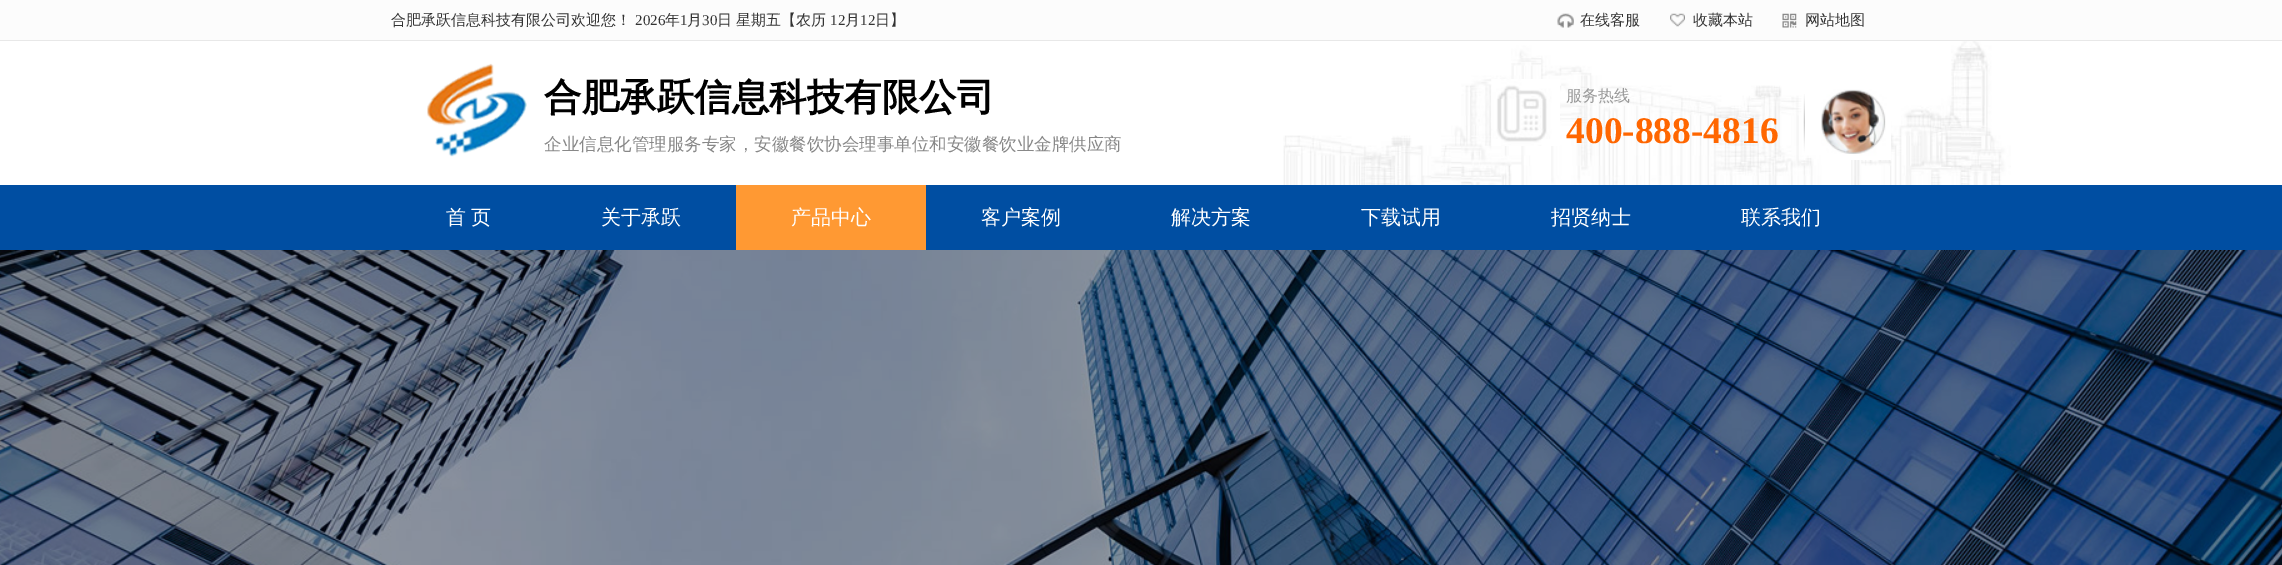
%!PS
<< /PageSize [2282 565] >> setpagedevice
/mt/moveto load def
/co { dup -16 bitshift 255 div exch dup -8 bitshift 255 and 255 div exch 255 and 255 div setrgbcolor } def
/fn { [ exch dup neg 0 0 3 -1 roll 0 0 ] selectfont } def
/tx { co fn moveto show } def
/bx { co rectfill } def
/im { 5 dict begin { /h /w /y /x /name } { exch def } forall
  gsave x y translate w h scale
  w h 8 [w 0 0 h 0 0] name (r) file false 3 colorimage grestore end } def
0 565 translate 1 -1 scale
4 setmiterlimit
0 0 2282 565 16#FFFFFF bx
0 0 2282 40 16#FCFCFC bx
0 40 2282 1 16#E8E8E8 bx
(media/1.raw) 1557 13 17 15 im
(media/2.raw) 1670 13 15 14 im
(media/3.raw) 1782 13 15 15 im
(media/4.raw) 1283 41 728 144 im
(media/5.raw) 427 63 100 94 im
(media/6.raw) 1491 79 69 67 im
(media/7.raw) 1803 94 2 66 im
(media/8.raw) 1821 89 70 71 im
0 185 2282 65 16#004EA2 bx
736 185 190 65 16#FF9933 bx
(media/9.raw) 0 250 2282 315 im
(合肥承跃信息科技有限公司欢迎您！) 391 25 /WenQuanYiZenHei-Medium 15 16#333333 tx
(2026) 635 25 /LiberationSerif-Regular 15 16#333333 tx
(年) 665 25 /WenQuanYiZenHei-Medium 15 16#333333 tx
(1) 680 25 /LiberationSerif-Regular 15 16#333333 tx
(月) 687 25 /WenQuanYiZenHei-Medium 15 16#333333 tx
(30) 702 25 /LiberationSerif-Regular 15 16#333333 tx
(日 星期五) 717 25 /WenQuanYiZenHei-Medium 15 16#333333 tx
(【农历) 781 25 /WenQuanYiZenHei-Medium 15 16#333333 tx
(12) 830 25 /LiberationSerif-Regular 15 16#333333 tx
(月) 845 25 /WenQuanYiZenHei-Medium 15 16#333333 tx
(12) 860 25 /LiberationSerif-Regular 15 16#333333 tx
(日】) 875 25 /WenQuanYiZenHei-Medium 15 16#333333 tx
(在线客服) 1580 25 /WenQuanYiZenHei-Medium 15 16#333333 tx
(收藏本站) 1693 25 /WenQuanYiZenHei-Medium 15 16#333333 tx
(网站地图) 1805 25 /WenQuanYiZenHei-Medium 15 16#333333 tx
(合肥承跃信息科技有限公司) 544 110 /WenQuanYiZenHei-Bold 37.5 16#000000 tx
(企业信息化管理服务专家，安徽餐饮协会理事单位和安徽餐饮业金牌供应商) 544 150 /WenQuanYiZenHei-Medium 17.5 16#888888 tx
(服务热线) 1566 101 /WenQuanYiZenHei-Medium 16 16#999999 tx
(400-888-4816) 1566 143 /LiberationSerif-Bold 37.5 16#FF6600 tx
/WenQuanYiZenHei-Medium 20 fn
16#FFFFFF co
446 224 mt -1 0 32 (首 页) widthshow
(关于承跃) 601 224 /WenQuanYiZenHei-Medium 20 16#FFFFFF tx
(产品中心) 791 224 /WenQuanYiZenHei-Medium 20 16#FFFFFF tx
(客户案例) 981 224 /WenQuanYiZenHei-Medium 20 16#FFFFFF tx
(解决方案) 1171 224 /WenQuanYiZenHei-Medium 20 16#FFFFFF tx
(下载试用) 1361 224 /WenQuanYiZenHei-Medium 20 16#FFFFFF tx
(招贤纳士) 1551 224 /WenQuanYiZenHei-Medium 20 16#FFFFFF tx
(联系我们) 1741 224 /WenQuanYiZenHei-Medium 20 16#FFFFFF tx
showpage
